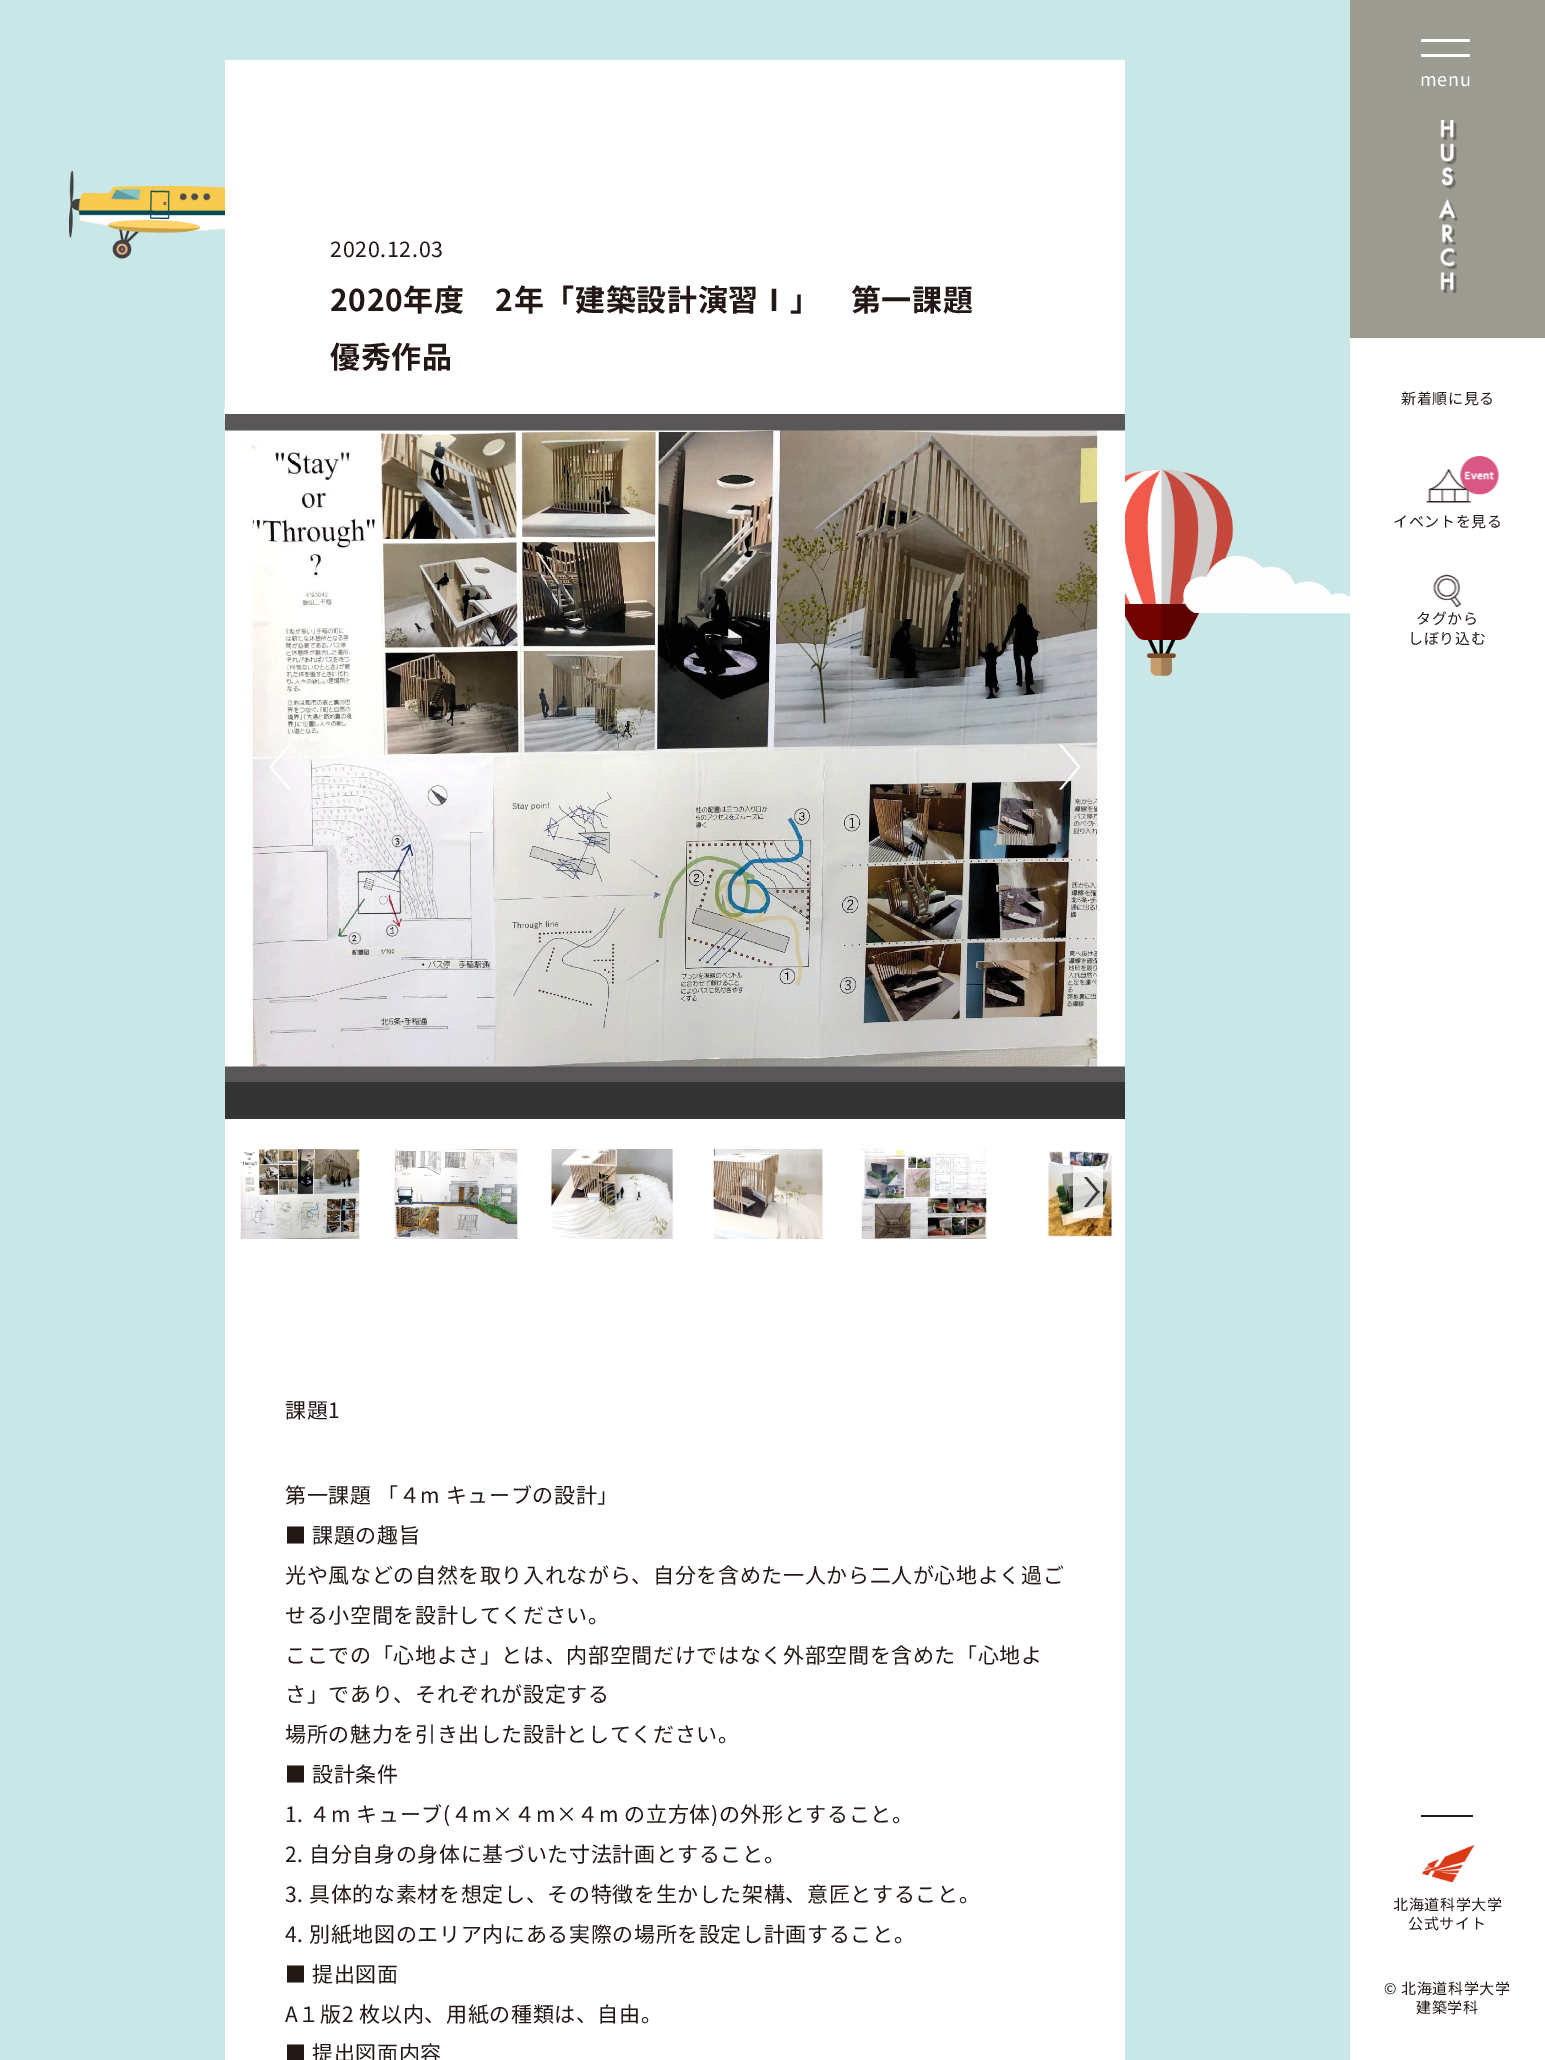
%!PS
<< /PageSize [1545 2060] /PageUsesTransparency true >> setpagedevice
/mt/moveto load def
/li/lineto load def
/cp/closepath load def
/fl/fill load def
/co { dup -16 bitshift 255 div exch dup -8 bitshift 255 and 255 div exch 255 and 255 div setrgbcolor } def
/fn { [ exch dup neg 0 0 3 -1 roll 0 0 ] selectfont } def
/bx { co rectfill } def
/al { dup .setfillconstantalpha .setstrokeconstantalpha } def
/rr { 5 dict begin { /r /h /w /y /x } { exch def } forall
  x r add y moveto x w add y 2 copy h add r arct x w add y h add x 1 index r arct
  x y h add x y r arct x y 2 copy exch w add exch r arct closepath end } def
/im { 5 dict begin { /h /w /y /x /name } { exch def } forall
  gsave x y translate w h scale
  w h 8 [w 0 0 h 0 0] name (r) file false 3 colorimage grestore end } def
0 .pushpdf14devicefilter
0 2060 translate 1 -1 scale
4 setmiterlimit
0 0 1545 2060 16#CAE7E7 bx
(media/1.raw) 69 170 1281 506 im
1350 0 195 338 16#9C9B91 bx
16#FFFFFF co
1421 39 49 3 1.5 rr fl
1421 54 49 3 1.5 rr fl
225 60 900 2000 16#FFFFFF bx
225 414 900 668 16#595757 bx
(media/2.raw) 225 430 900 637 im
225 1082 900 37 16#353434 bx
16#FFFFFF co
288.5 744.5 mt 291 744.5 li 272 767 li 269.5 767 li cp 269.5 767 mt 272 767 li 291 789.5 li 288.5 789.5 li cp fl
1061.5 789.5 mt 1059 789.5 li 1078 767 li 1080.5 767 li cp 1080.5 767 mt 1078 767 li 1059 744.5 li 1061.5 744.5 li cp fl
(media/3.raw) 240 1149 120 90 im
(media/4.raw) 394 1149 124 90 im
(media/5.raw) 551 1149 122 90 im
(media/6.raw) 713 1149 110 90 im
(media/7.raw) 861 1149 126 90 im
(media/8.raw) 1048 1151 64 86 im
0.8 al
1073 1166 30 52 16#FFFFFF bx
1 al
16#3E3A39 co
1084 1177 mt 1087 1177 li 1100 1192.5 li 1097 1192.5 li cp fl
1097 1191 mt 1100 1191 li 1087 1207 li 1084 1207 li cp fl
1350 338 195 1722 16#FFFFFF bx
(media/9.raw) 1439 120 19 173 im
(media/10.raw) 1426 456 73 47 im
(media/11.raw) 1433 574 29 34 im
1421 1815 52 2 16#231815 bx
(media/12.raw) 1422 1845 53 38 im
/NotoSansJP-Regular 18 fn
16#FFFFFF co
1420 86 mt .65 0 (menu) ashow
/SourceSansPro-Regular 24 fn
16#231815 co
330 257 mt .65 0 (2020.12.03) ashow
/NotoSansJP-Bold 30 fn
330 311 mt .65 0 (2020年度　2年「建築設計演習Ⅰ」　第一課題) ashow
330 368 mt .65 0 (優) ashow
/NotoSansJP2-Bold 30 fn
361 368 mt .65 0 (秀) ashow
/NotoSansJP-Bold 30 fn
391 368 mt .65 0 (作品) ashow
/NotoSansJP-Regular 21 fn
285 1418 mt .65 0 (課題1) ashow
285 1503 mt .65 0 (第一課題 「４m キューブの設計」) ashow
285 1543 mt .65 0 (■ 課題の趣旨) ashow
285 1583 mt .65 0 (光や⾵などの⾃然を取り⼊れながら、⾃分を含めた⼀⼈から⼆⼈が⼼地よく過ご) ashow
285 1623 mt .65 0 (せる⼩空間を設計してください。) ashow
285 1663 mt .65 0 (ここでの「⼼地よさ」とは、内部空間だけではなく外部空間を含めた「⼼地よ) ashow
285 1702 mt .65 0 (さ」であり、それぞれが設定する) ashow
285 1742 mt .65 0 (場所の魅⼒を引き出した設計としてください。) ashow
285 1782 mt .65 0 (■ 設計条件) ashow
285 1822 mt .65 0 (1. ４m キューブ\(４m×４m×４m の⽴⽅体\)の外形とすること。) ashow
285 1862 mt .65 0 (2. ⾃分⾃⾝の⾝体に基づいた⼨法計画とすること。) ashow
285 1902 mt .65 0 (3. 具体的な素材を想定し、その特徴を⽣かした架構、意匠とすること。) ashow
285 1942 mt .65 0 (4. 別紙地図のエリア内にある実際の場所を設定し計画すること。) ashow
285 1982 mt .65 0 (■ 提出図面) ashow
285 2022 mt .65 0 (A１版2 枚以内、⽤紙の種類は、⾃由。) ashow
285 2061 mt .65 0 (■ 提出図面内容) ashow
/NotoSansJP-Regular 15 fn
1401 404 mt .65 0 (新着順に見る) ashow
1393 527 mt .65 0 (イベントを見る) ashow
1416 624 mt .65 0 (タグから) ashow
1408 644 mt .65 0 (しぼり込む) ashow
1393 1910 mt .65 0 (北海道科学大学) ashow
1408 1929 mt .65 0 (公式サイト) ashow
1384 1994 mt .65 0 (© 北海道科学大学) ashow
1416 2013 mt .65 0 (建築学科) ashow
.poppdf14devicefilter showpage
